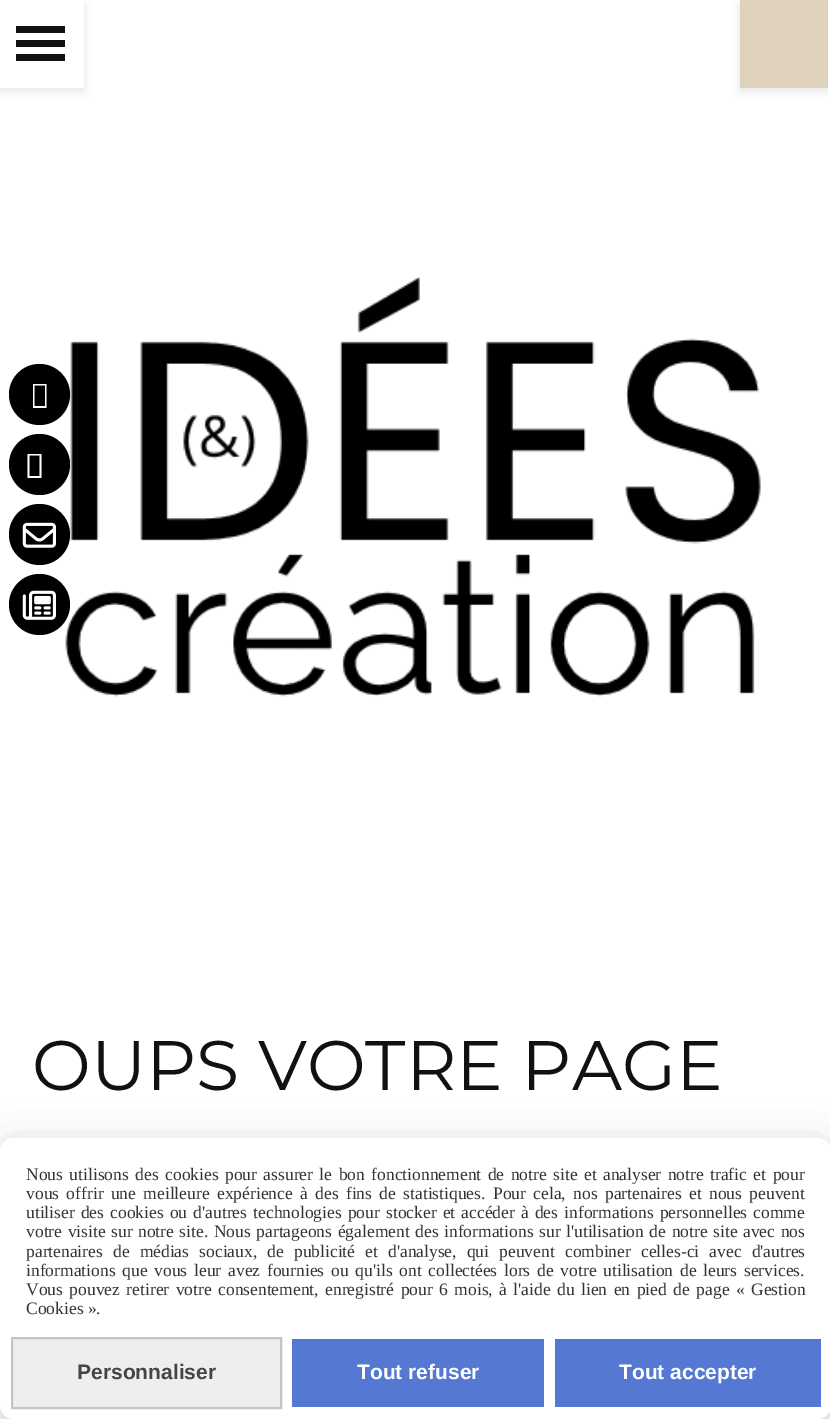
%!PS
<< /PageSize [830 1419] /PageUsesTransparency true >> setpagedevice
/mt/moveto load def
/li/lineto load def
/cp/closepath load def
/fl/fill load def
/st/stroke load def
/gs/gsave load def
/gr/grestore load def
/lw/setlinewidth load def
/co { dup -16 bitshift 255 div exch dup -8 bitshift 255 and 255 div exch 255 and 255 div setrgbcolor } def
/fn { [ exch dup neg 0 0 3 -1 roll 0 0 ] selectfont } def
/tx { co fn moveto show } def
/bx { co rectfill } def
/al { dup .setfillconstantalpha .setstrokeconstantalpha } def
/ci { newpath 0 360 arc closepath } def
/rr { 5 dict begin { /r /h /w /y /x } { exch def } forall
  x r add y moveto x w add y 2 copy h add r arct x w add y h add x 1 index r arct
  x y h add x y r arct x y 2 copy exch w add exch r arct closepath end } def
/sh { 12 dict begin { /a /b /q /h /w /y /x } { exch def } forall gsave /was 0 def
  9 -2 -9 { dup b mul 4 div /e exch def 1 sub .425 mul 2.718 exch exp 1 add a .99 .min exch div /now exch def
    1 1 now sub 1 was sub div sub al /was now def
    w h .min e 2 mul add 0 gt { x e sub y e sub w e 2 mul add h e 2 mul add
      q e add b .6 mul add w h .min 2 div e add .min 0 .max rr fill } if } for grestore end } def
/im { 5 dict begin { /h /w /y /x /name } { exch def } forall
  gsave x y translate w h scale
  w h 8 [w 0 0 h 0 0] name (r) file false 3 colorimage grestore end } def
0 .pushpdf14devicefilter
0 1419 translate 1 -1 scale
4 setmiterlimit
0 0 830 1419 16#FFFFFF bx
(media/3.raw) 65 277 696 420 im
16#000000 co
39.5 394.5 30.5 ci fl
16#FFFFFF co
33 408 mt 33 384 li 46.5 384 li 46.5 408 li cp 34.5 406 mt 45 406 li 45 385.5 li 34.5 385.5 li cp fl
16#000000 co
39.5 464.5 30.5 ci fl
16#FFFFFF co
27.5 478 mt 27.5 454 li 41.5 454 li 41.5 478 li cp 29.5 476 mt 39.5 476 li 39.5 455.5 li 29.5 455.5 li cp fl
16#000000 co
39.5 534.5 30.5 ci fl
(media/1.raw) 22 522 34 26 im
39.5 604.5 30.5 ci fl
(media/2.raw) 22 590 34 30 im
gs
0 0 mt 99 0 li 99 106 li 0 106 li cp -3 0 mt 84 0 li 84 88 li -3 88 li cp eoclip newpath
-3 4 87 87 0 4.5 .1 sh
gr
16 26 49 7 16#111111 bx
16 40 49 7 16#111111 bx
16 54 49 7 16#111111 bx
gs
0 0 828 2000 rectclip
16#000000 co
740 4 88 87 0 4.5 .1 sh
gr
740 0 88 88 16#DED2BC bx
16#000000 co
0 1141 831 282 14 5 .05 sh
0 1145 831 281 14 21 .15 sh
16#FFFFFF co
0 1138 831 281 14 rr fl
16#EEEEEE co
12 1338 mt 281 1338 li 281 1408 li 12 1408 li cp gs fl gr
16#C5C5C5 co
2 lw
st
292 1339 252 68 16#5579D2 bx
555 1339 266 68 16#5579D2 bx
(OUPS VOTRE PAGE) 32 1090 /Montserrat-Regular 70 16#111111 tx
/LiberationSerif-Regular 17.5 fn
16#333333 co
26 1180 mt 2.1 0 32 (Nous utilisons des cookies pour assurer le bon fonctionnement de notre site et analyser notre trafic et pour) widthshow
26 1199 mt 3 0 32 (vous offrir une meilleure expérience à des fins de statistiques. Pour cela, nos partenaires et nous peuvent) widthshow
26 1218 mt 1.75 0 32 (utiliser des cookies ou d'autres technologies pour stocker et accéder à des informations personnelles comme) widthshow
26 1237 mt 1.2 0 32 (votre visite sur notre site. Nous partageons également des informations sur l'utilisation de notre site avec nos) widthshow
26 1257 mt 5.75 0 32 (partenaires de médias sociaux, de publicité et d'analyse, qui peuvent combiner celles-ci avec d'autres) widthshow
26 1276 mt 2.4 0 32 (informations que vous leur avez fournies ou qu'ils ont collectées lors de votre utilisation de leurs services.) widthshow
26 1295 mt 2.1 0 32 (Vous pouvez retirer votre consentement, enregistré pour 6 mois, à l'aide du lien en pied de page « Gestion) widthshow
(Cookies ».) 26 1314 /LiberationSerif-Regular 17.5 16#333333 tx
(Personnaliser) 77 1379 /LiberationSans-Bold 21 16#444444 tx
(Tout refuser) 357 1379 /LiberationSans-Bold 21 16#FFFFFF tx
(Tout accepter) 619 1379 /LiberationSans-Bold 21 16#FFFFFF tx
.poppdf14devicefilter showpage
